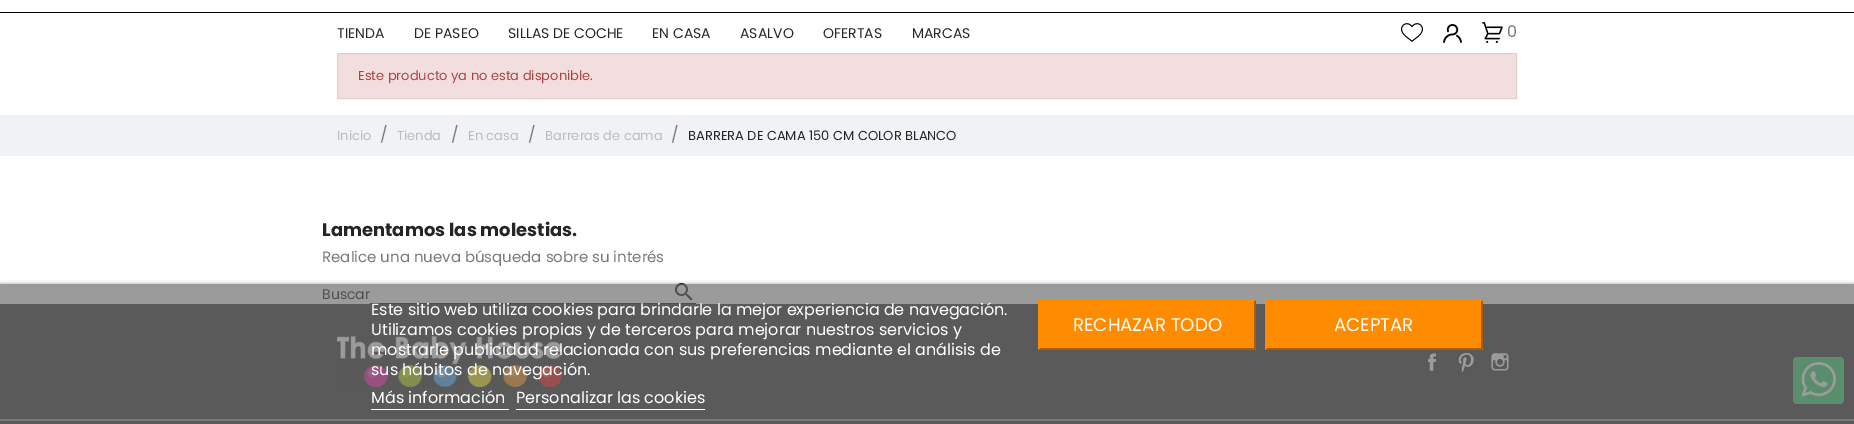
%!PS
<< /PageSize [1854 424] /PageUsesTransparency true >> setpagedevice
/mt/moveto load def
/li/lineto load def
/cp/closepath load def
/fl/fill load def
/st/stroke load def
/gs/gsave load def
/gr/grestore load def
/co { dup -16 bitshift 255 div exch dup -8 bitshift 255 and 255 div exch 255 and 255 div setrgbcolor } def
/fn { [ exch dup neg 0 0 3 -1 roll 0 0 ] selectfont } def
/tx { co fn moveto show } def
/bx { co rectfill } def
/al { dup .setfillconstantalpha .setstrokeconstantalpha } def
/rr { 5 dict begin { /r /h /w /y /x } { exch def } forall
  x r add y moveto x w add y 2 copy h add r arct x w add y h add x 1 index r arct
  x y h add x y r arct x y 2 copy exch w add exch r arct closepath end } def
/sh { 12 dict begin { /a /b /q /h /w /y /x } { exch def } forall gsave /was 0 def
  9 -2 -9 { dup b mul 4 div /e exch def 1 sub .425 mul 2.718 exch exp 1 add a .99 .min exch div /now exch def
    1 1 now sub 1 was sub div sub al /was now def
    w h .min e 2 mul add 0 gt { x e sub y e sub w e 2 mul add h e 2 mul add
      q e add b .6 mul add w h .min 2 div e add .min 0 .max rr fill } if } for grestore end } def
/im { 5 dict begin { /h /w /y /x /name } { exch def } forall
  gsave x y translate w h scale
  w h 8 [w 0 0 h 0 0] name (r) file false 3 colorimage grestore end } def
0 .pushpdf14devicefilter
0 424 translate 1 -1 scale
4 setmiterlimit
0 0 1854 424 16#FFFFFF bx
0 284 1854 20 16#9B9B9B bx
0 12 1854 1 16#000000 bx
(media/1.raw) 1401 23 22 19 im
(media/2.raw) 1443 24 19 19 im
(media/3.raw) 1482 22 21 21 im
16#F2DEDE co
337.5 53.5 mt 1516.5 53.5 li 1516.5 98.5 li 337.5 98.5 li cp gs fl gr
16#EBCCCC co
st
0 115 1854 41 16#F0F2F5 bx
(media/4.raw) 675 283 18 18 im
370 303 326 1 16#4E4E4E bx
0 304 1854 120 16#5A5A5A bx
0 419 1854 2 16#7A7A7A bx
(media/5.raw) 337 336 225 51 im
(media/6.raw) 1427 353 9 18 im
(media/7.raw) 1458 353 16 20 im
(media/8.raw) 1491 353 18 18 im
16#5A8E6D co
1793 357 51 47 4 rr fl
(media/9.raw) 1801 362 35 35 im
gs
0 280 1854 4 rectclip
16#707070 co
0 285 1854 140 0 2.5 1 sh
gr
371 409 138 1 16#FFFFFF bx
516 409 189 1 16#FFFFFF bx
1038 300 218 50 16#FE8B00 bx
16#A95D00 co
1256 300 mt 1256 350 li 1254 348 li 1254 302 li cp fl
1256 350 mt 1038 350 li 1040 348 li 1254 348 li cp fl
16#FE8B00 co
1038 350 mt 1038 300 li 1040 302 li 1040 348 li cp fl
1265 300 218 50 16#FE8B00 bx
16#A95D00 co
1483 300 mt 1483 350 li 1481 348 li 1481 302 li cp fl
1483 350 mt 1265 350 li 1267 348 li 1481 348 li cp fl
16#FE8B00 co
1265 350 mt 1265 300 li 1267 302 li 1267 348 li cp fl
(TIENDA) 337 38 /Poppins-Regular 14 16#252525 tx
(DE PASEO) 414 38 /Poppins-Regular 14 16#252525 tx
(SILLAS DE COCHE) 508 38 /Poppins-Regular 14 16#252525 tx
(EN CASA) 652 38 /Poppins-Regular 14 16#252525 tx
(ASALVO) 740 38 /Poppins-Regular 14 16#252525 tx
(OFERTAS) 823 38 /Poppins-Regular 14 16#252525 tx
(MARCAS) 912 38 /Poppins-Regular 14 16#252525 tx
(0) 1507 37 /Poppins-Regular 16 16#7A7A7A tx
(Este producto ya no esta disponible.) 358 80 /Poppins-Regular 13 16#A94442 tx
(Inicio) 337 140 /Poppins-Regular 13 16#BBBBBB tx
(/) 380 140 /Poppins-Regular 16 16#7A7A7A tx
(Tienda) 397 140 /Poppins-Regular 13 16#BBBBBB tx
(/) 451 140 /Poppins-Regular 16 16#7A7A7A tx
(En casa) 468 140 /Poppins-Regular 13 16#BBBBBB tx
(/) 528 140 /Poppins-Regular 16 16#7A7A7A tx
(Barreras de cama) 545 140 /Poppins-Regular 13 16#BBBBBB tx
(/) 671 140 /Poppins-Regular 16 16#7A7A7A tx
(BARRERA DE CAMA 150 CM COLOR BLANCO) 688 140 /Poppins-Regular 13 16#252525 tx
(Lamentamos las molestias.) 322 236 /Poppins-Bold 18 16#252525 tx
(Realice una nueva búsqueda sobre su interés) 322 262 /Poppins-Regular 15 16#7A7A7A tx
(Buscar) 322 299 /Poppins-Regular 14 16#4E4E4E tx
(Este sitio web utiliza cookies para brindarle la mejor experiencia de navegación.) 371 315 /Poppins-Regular 16 16#FFFFFF tx
(Utilizamos cookies propias y de terceros para mejorar nuestros servicios y) 371 335 /Poppins-Regular 16 16#FFFFFF tx
(mostrarle publicidad relacionada con sus preferencias mediante el análisis de) 371 355 /Poppins-Regular 16 16#FFFFFF tx
(sus hábitos de navegación.) 371 375 /Poppins-Regular 16 16#FFFFFF tx
(Más información) 371 403 /Poppins-Regular 16 16#FFFFFF tx
(Personalizar las cookies) 516 403 /Poppins-Regular 16 16#FFFFFF tx
(RECHAZAR TODO) 1073 331 /Poppins-Regular 18.25 16#FFFFFF tx
(ACEPTAR) 1334 331 /Poppins-Regular 18.25 16#FFFFFF tx
.poppdf14devicefilter showpage
